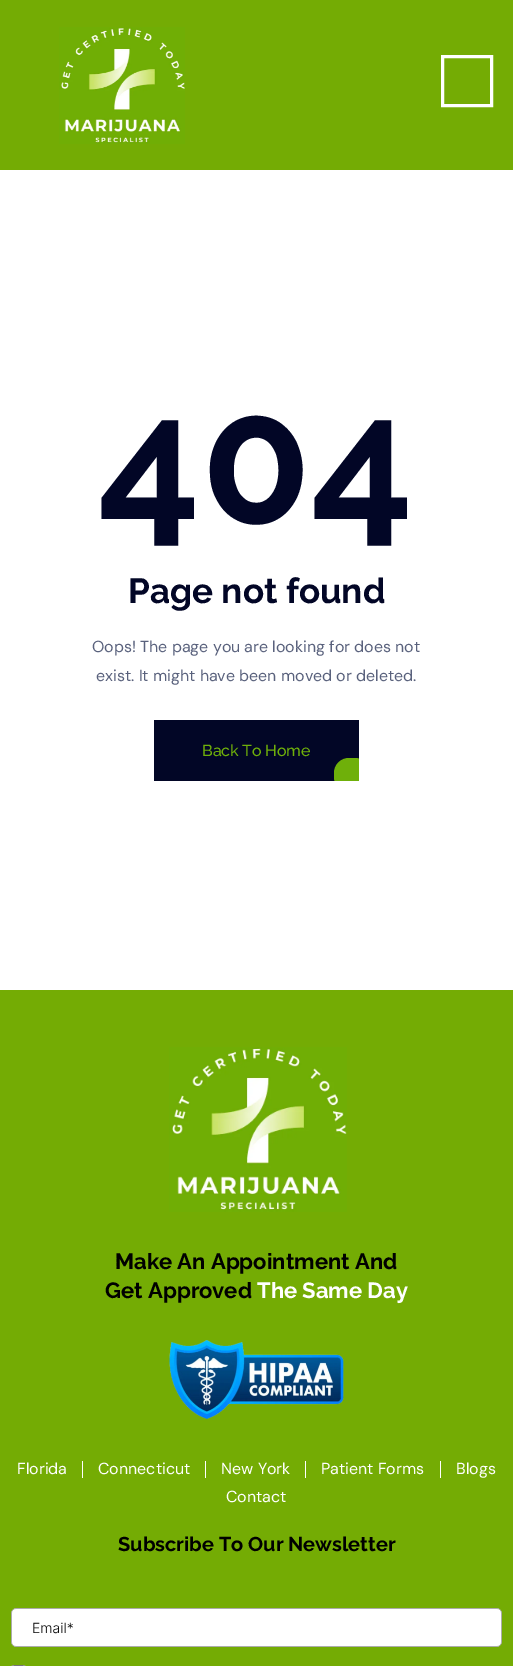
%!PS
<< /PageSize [513 1666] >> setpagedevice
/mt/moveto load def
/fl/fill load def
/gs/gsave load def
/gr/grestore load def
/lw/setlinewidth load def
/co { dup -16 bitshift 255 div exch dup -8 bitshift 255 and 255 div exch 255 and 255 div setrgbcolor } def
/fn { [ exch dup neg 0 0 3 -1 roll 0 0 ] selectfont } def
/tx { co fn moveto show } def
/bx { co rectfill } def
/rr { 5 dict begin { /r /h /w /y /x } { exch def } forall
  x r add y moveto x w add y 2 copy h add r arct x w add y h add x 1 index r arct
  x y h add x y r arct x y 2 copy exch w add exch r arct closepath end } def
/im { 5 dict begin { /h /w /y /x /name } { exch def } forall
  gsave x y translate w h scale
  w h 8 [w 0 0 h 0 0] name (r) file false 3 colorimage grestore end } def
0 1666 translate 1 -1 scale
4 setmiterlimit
0 0 513 1666 16#FFFFFF bx
0 0 513 170 16#74AC04 bx
(media/1.raw) 59 27 126 117 im
16#FFFFFF co
3 lw
442.5 56.5 49 49 rectstroke
154 720 205 61 16#020626 bx
gs
154 720 205 61 rectclip
16#6FB00A co
334 758 36 34 15 rr fl
gr
0 990 513 676 16#74AC04 bx
(media/2.raw) 169 1047 178 165 im
(media/3.raw) 169 1340 175 79 im
82 1461 1 17 16#FFFFFF bx
205 1461 1 17 16#FFFFFF bx
305 1461 1 17 16#FFFFFF bx
440 1461 1 17 16#FFFFFF bx
(media/4.raw) 11 1608 491 58 im
(404) 98 523 /Raleway-Bold 180 16#020626 tx
(Page not found) 128 603 /Raleway-Bold 35 16#020626 tx
(Oops! The page you are looking for does not) 92 652 /DMSans-Regular 16 16#5A627D tx
(exist. It might have been moved or deleted.) 96 681 /DMSans-Regular 16 16#5A627D tx
/Raleway-Medium 16 fn
16#6FB00A co
202 756 mt -.2 0 (Back To Home) ashow
(Make An Appointment And) 115 1269 /Raleway-Bold 22 16#000000 tx
(Get Approved) 105 1298 /Raleway-Bold 22 16#000000 tx
(The Same Day) 257 1298 /Raleway-Bold 22 16#FFFFFF tx
(Florida) 17 1474 /DMSans-Regular 16 16#FFFFFF tx
(Connecticut) 98 1474 /DMSans-Regular 16 16#FFFFFF tx
(New York) 221 1474 /DMSans-Regular 16 16#FFFFFF tx
(Patient Forms) 321 1474 /DMSans-Regular 16 16#FFFFFF tx
(Blogs) 456 1474 /DMSans-Regular 16 16#FFFFFF tx
(Contact) 226 1502 /DMSans-Regular 16 16#FFFFFF tx
(Subscribe To Our Newsletter) 118 1551 /Raleway-Bold 20 16#000000 tx
showpage
